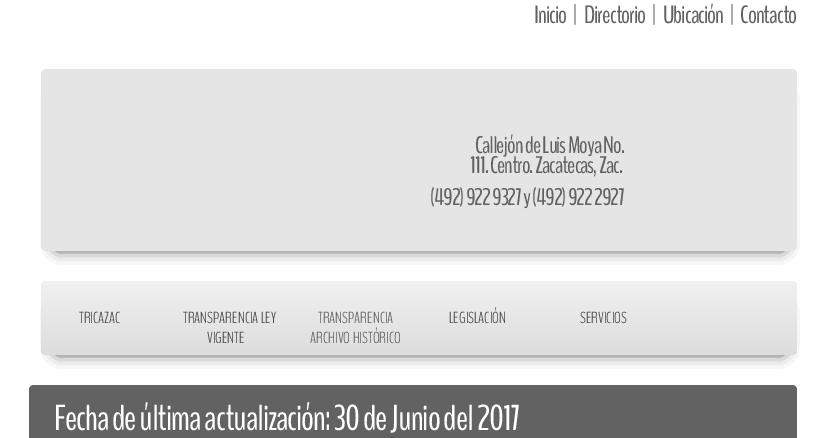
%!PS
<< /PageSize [837 438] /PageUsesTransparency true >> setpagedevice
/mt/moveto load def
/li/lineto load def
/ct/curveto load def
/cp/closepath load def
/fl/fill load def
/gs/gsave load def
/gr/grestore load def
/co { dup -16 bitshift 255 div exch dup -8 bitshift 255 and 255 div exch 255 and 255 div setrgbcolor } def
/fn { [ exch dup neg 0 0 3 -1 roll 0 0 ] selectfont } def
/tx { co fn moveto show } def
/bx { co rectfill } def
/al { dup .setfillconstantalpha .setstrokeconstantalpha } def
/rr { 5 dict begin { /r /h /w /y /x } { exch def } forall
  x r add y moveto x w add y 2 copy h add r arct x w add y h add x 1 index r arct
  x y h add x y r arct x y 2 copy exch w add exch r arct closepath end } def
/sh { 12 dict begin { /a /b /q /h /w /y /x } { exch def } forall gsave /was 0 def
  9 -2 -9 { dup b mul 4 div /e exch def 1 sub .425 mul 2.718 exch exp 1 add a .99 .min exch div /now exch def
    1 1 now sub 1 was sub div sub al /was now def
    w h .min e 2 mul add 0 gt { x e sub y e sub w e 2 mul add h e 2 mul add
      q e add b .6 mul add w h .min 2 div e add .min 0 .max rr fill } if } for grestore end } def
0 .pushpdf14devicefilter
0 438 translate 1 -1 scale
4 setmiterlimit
0 0 837 438 16#FFFFFF bx
16#000000 co
57 96 726 152 0 7.5 1 sh
16#E5E5E5 co
41 69 756 182 5 rr fl
16#000000 co
57 308 726 44 0 7.5 1 sh
gs 41 281 756 74 5 rr clip newpath
<< /ShadingType 2 /ColorSpace /DeviceRGB /Coords [419 281 419 355] /Extend [true true] /Function << /FunctionType 2 /Domain [0 1] /C0 [.945 .945 .945] /C1 [.867 .867 .867] /N 1 >> >> shfill gr
16#626262 co
34 385 mt 792 385 li 795 385 797 387 797 390 ct 797 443 li 29 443 li 29 390 li 29 387 31 385 34 385 ct cp fl
/BenchNine-Regular 25 fn
16#616161 co
534 23 mt -1 0 (Inicio) ashow
573 23 mt -1 0 (|) ashow
584 23 mt -1 0 (Directorio) ashow
652 23 mt -1 0 (|) ashow
663 23 mt -1 0 (Ubicación) ashow
730 23 mt -1 0 (|) ashow
740 23 mt -1 0 (Contacto) ashow
/BenchNine-Regular 24 fn
475 153 mt -1 0 (Callejón de Luis Moya No.) ashow
470 173 mt -1 0 (111. Centro. Zacatecas, Zac.) ashow
430 205 mt -1 0 (\(492\) 922 9327 y \(492\) 922 2927) ashow
(TRICAZAC) 79 323 /BenchNine-Light 16 16#464646 tx
(TRANSPARENCIA LEY) 183 323 /BenchNine-Light 16 16#464646 tx
(VIGENTE) 207 343 /BenchNine-Light 16 16#464646 tx
(TRANSPARENCIA) 318 323 /BenchNine-Light 16 16#616161 tx
(ARCHIVO HISTÓRICO) 310 343 /BenchNine-Light 16 16#616161 tx
(LEGISLACIÓN) 449 323 /BenchNine-Light 16 16#464646 tx
(SERVICIOS) 580 323 /BenchNine-Light 16 16#464646 tx
/BenchNine-Regular 36 fn
16#FFFFFF co
54 430 mt -1 0 (Fecha de última actualización: 30 de Junio del 2017) ashow
.poppdf14devicefilter showpage
